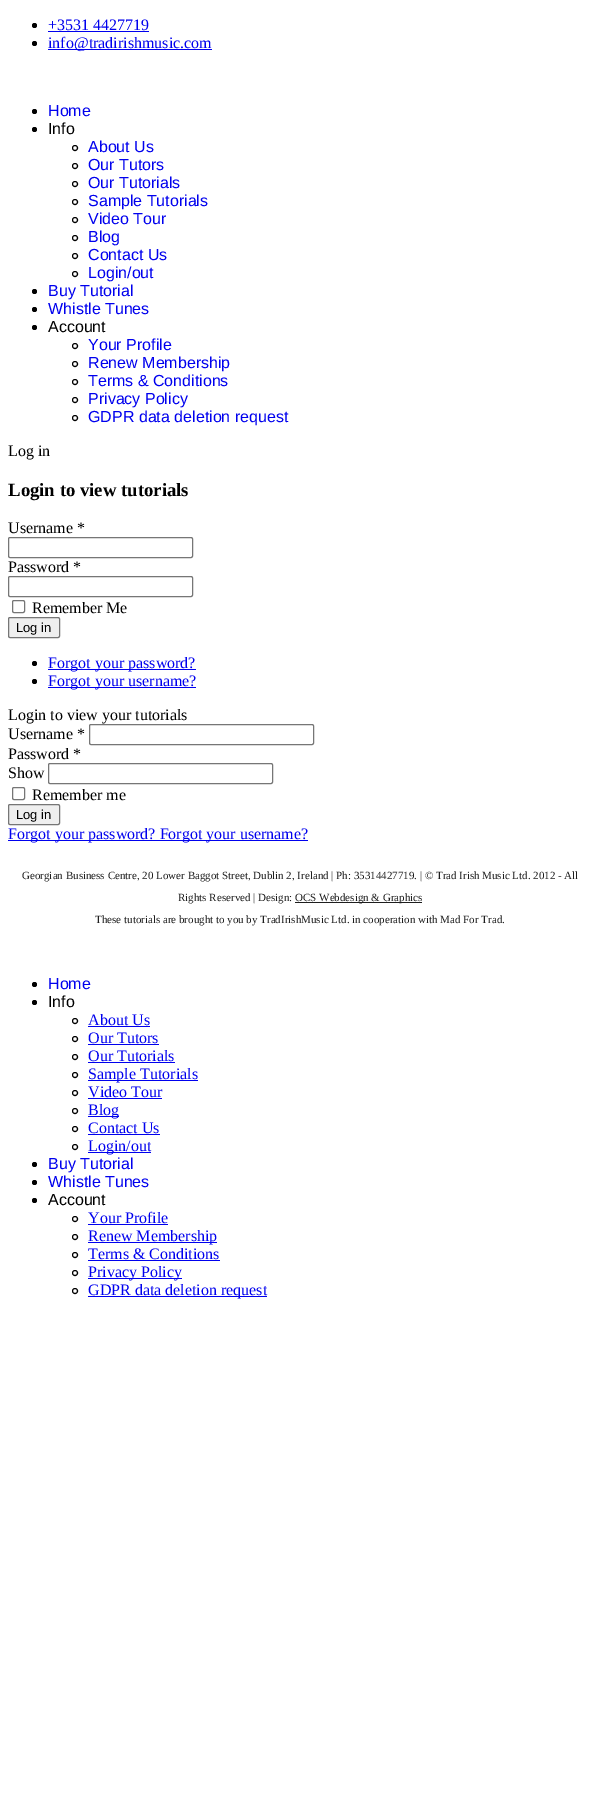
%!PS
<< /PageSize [600 1815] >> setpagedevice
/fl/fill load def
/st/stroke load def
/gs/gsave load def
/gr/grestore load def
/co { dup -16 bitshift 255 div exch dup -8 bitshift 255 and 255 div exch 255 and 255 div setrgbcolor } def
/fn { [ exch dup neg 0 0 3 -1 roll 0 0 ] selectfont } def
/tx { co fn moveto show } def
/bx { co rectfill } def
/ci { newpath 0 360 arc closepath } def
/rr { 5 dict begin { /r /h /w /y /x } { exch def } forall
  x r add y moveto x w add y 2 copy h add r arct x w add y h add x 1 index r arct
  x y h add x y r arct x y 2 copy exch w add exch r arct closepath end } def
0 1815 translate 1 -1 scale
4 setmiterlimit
0 0 600 1815 16#FFFFFF bx
16#000000 co
34.5 25.5 2.5 ci fl
48 31 101 1 16#0000EE bx
16#000000 co
34.5 43.5 2.5 ci fl
48 49 164 1 16#0000EE bx
16#000000 co
34.5 111.5 2.5 ci fl
34.5 129.5 2.5 ci fl
75 148 2.5 ci st
75 166 2.5 ci st
75 184 2.5 ci st
75 202 2.5 ci st
75 220 2.5 ci st
75 238 2.5 ci st
75 256 2.5 ci st
75 274 2.5 ci st
34.5 291.5 2.5 ci fl
34.5 309.5 2.5 ci fl
34.5 327.5 2.5 ci fl
75 346 2.5 ci st
75 364 2.5 ci st
75 382 2.5 ci st
75 400 2.5 ci st
75 418 2.5 ci st
16#767676 co
8.5 537.5 184 20 1.5 rr st
8.5 576.5 184 20 1.5 rr st
12.5 600.5 12 12 1.5 rr st
16#EFEFEF co
8.5 617.5 51 20 1.5 rr gs fl gr
16#767676 co
st
16#000000 co
34.5 663.5 2.5 ci fl
48 669 148 1 16#0000EE bx
16#000000 co
34.5 681.5 2.5 ci fl
48 687 148 1 16#0000EE bx
16#767676 co
89.5 724.5 224 20 1.5 rr st
48.5 763.5 224 20 1.5 rr st
12.5 787.5 12 12 1.5 rr st
16#EFEFEF co
8.5 804.5 51 20 1.5 rr gs fl gr
16#767676 co
st
8 840 300 1 16#0000EE bx
295 902 127 1 16#1E1E1E bx
16#000000 co
34.5 984.5 2.5 ci fl
34.5 1002.5 2.5 ci fl
75 1021 2.5 ci st
88 1026 62 1 16#0000EE bx
16#000000 co
75 1039 2.5 ci st
88 1044 71 1 16#0000EE bx
16#000000 co
75 1057 2.5 ci st
88 1062 87 1 16#0000EE bx
16#000000 co
75 1075 2.5 ci st
88 1080 110 1 16#0000EE bx
16#000000 co
75 1093 2.5 ci st
88 1098 74 1 16#0000EE bx
16#000000 co
75 1111 2.5 ci st
88 1116 31 1 16#0000EE bx
16#000000 co
75 1129 2.5 ci st
88 1134 72 1 16#0000EE bx
16#000000 co
75 1147 2.5 ci st
88 1152 63 1 16#0000EE bx
16#000000 co
34.5 1164.5 2.5 ci fl
34.5 1182.5 2.5 ci fl
34.5 1200.5 2.5 ci fl
75 1219 2.5 ci st
88 1224 80 1 16#0000EE bx
16#000000 co
75 1237 2.5 ci st
88 1242 129 1 16#0000EE bx
16#000000 co
75 1255 2.5 ci st
88 1260 132 1 16#0000EE bx
16#000000 co
75 1273 2.5 ci st
88 1278 94 1 16#0000EE bx
16#000000 co
75 1291 2.5 ci st
88 1296 179 1 16#0000EE bx
(+3531 4427719) 48 30 /LiberationSerif-Regular 16 16#0000EE tx
(info@tradirishmusic.com) 48 48 /LiberationSerif-Regular 16 16#0000EE tx
(Home) 48 116 /LiberationSans-Regular 16 16#0000EE tx
(Info) 48 134 /LiberationSans-Regular 16 16#000000 tx
(About Us) 88 152 /LiberationSans-Regular 16 16#0000EE tx
(Our Tutors) 88 170 /LiberationSans-Regular 16 16#0000EE tx
(Our Tutorials) 88 188 /LiberationSans-Regular 16 16#0000EE tx
(Sample Tutorials) 88 206 /LiberationSans-Regular 16 16#0000EE tx
(Video Tour) 88 224 /LiberationSans-Regular 16 16#0000EE tx
(Blog) 88 242 /LiberationSans-Regular 16 16#0000EE tx
(Contact Us) 88 260 /LiberationSans-Regular 16 16#0000EE tx
(Login/out) 88 278 /LiberationSans-Regular 16 16#0000EE tx
(Buy Tutorial) 48 296 /LiberationSans-Regular 16 16#0000EE tx
(Whistle Tunes) 48 314 /LiberationSans-Regular 16 16#0000EE tx
(Account) 48 332 /LiberationSans-Regular 16 16#000000 tx
(Your Profile) 88 350 /LiberationSans-Regular 16 16#0000EE tx
(Renew Membership) 88 368 /LiberationSans-Regular 16 16#0000EE tx
(Terms & Conditions) 88 386 /LiberationSans-Regular 16 16#0000EE tx
(Privacy Policy) 88 404 /LiberationSans-Regular 16 16#0000EE tx
(GDPR data deletion request) 88 422 /LiberationSans-Regular 16 16#0000EE tx
(Log in) 8 456 /LiberationSerif-Regular 16 16#000000 tx
(Login to view tutorials) 8 496 /LiberationSerif-Bold 18.75 16#000000 tx
(Username *) 8 533 /LiberationSerif-Regular 16 16#000000 tx
(Password *) 8 572 /LiberationSerif-Regular 16 16#000000 tx
(Remember Me) 32 613 /LiberationSerif-Regular 16 16#000000 tx
(Log in) 16 632 /LiberationSans-Regular 13 16#000000 tx
(Forgot your password?) 48 668 /LiberationSerif-Regular 16 16#0000EE tx
(Forgot your username?) 48 686 /LiberationSerif-Regular 16 16#0000EE tx
(Login to view your tutorials) 8 720 /LiberationSerif-Regular 16 16#000000 tx
(Username *) 8 739 /LiberationSerif-Regular 16 16#000000 tx
(Password *) 8 759 /LiberationSerif-Regular 16 16#000000 tx
(Show) 8 778 /LiberationSerif-Regular 16 16#000000 tx
(Remember me) 32 800 /LiberationSerif-Regular 16 16#000000 tx
(Log in) 16 819 /LiberationSans-Regular 13 16#000000 tx
(Forgot your password? Forgot your username?) 8 839 /LiberationSerif-Regular 16 16#0000EE tx
(Georgian Business Centre, 20 Lower Baggot Street, Dublin 2, Ireland | Ph: 35314427719. | © Trad Irish Music Ltd. 2012 - All) 22 879 /LiberationSerif-Regular 11 16#1E1E1E tx
(Rights Reserved | Design:) 178 901 /LiberationSerif-Regular 11 16#1E1E1E tx
(OCS Webdesign & Graphics) 295 901 /LiberationSerif-Regular 11 16#1E1E1E tx
(These tutorials are brought to you by TradIrishMusic Ltd. in cooperation with Mad For Trad.) 95 923 /LiberationSerif-Regular 11 16#1E1E1E tx
(Home) 48 989 /LiberationSans-Regular 16 16#0000EE tx
(Info) 48 1007 /LiberationSans-Regular 16 16#000000 tx
(About Us) 88 1025 /LiberationSerif-Regular 16 16#0000EE tx
(Our Tutors) 88 1043 /LiberationSerif-Regular 16 16#0000EE tx
(Our Tutorials) 88 1061 /LiberationSerif-Regular 16 16#0000EE tx
(Sample Tutorials) 88 1079 /LiberationSerif-Regular 16 16#0000EE tx
(Video Tour) 88 1097 /LiberationSerif-Regular 16 16#0000EE tx
(Blog) 88 1115 /LiberationSerif-Regular 16 16#0000EE tx
(Contact Us) 88 1133 /LiberationSerif-Regular 16 16#0000EE tx
(Login/out) 88 1151 /LiberationSerif-Regular 16 16#0000EE tx
(Buy Tutorial) 48 1169 /LiberationSans-Regular 16 16#0000EE tx
(Whistle Tunes) 48 1187 /LiberationSans-Regular 16 16#0000EE tx
(Account) 48 1205 /LiberationSans-Regular 16 16#000000 tx
(Your Profile) 88 1223 /LiberationSerif-Regular 16 16#0000EE tx
(Renew Membership) 88 1241 /LiberationSerif-Regular 16 16#0000EE tx
(Terms & Conditions) 88 1259 /LiberationSerif-Regular 16 16#0000EE tx
(Privacy Policy) 88 1277 /LiberationSerif-Regular 16 16#0000EE tx
(GDPR data deletion request) 88 1295 /LiberationSerif-Regular 16 16#0000EE tx
showpage
